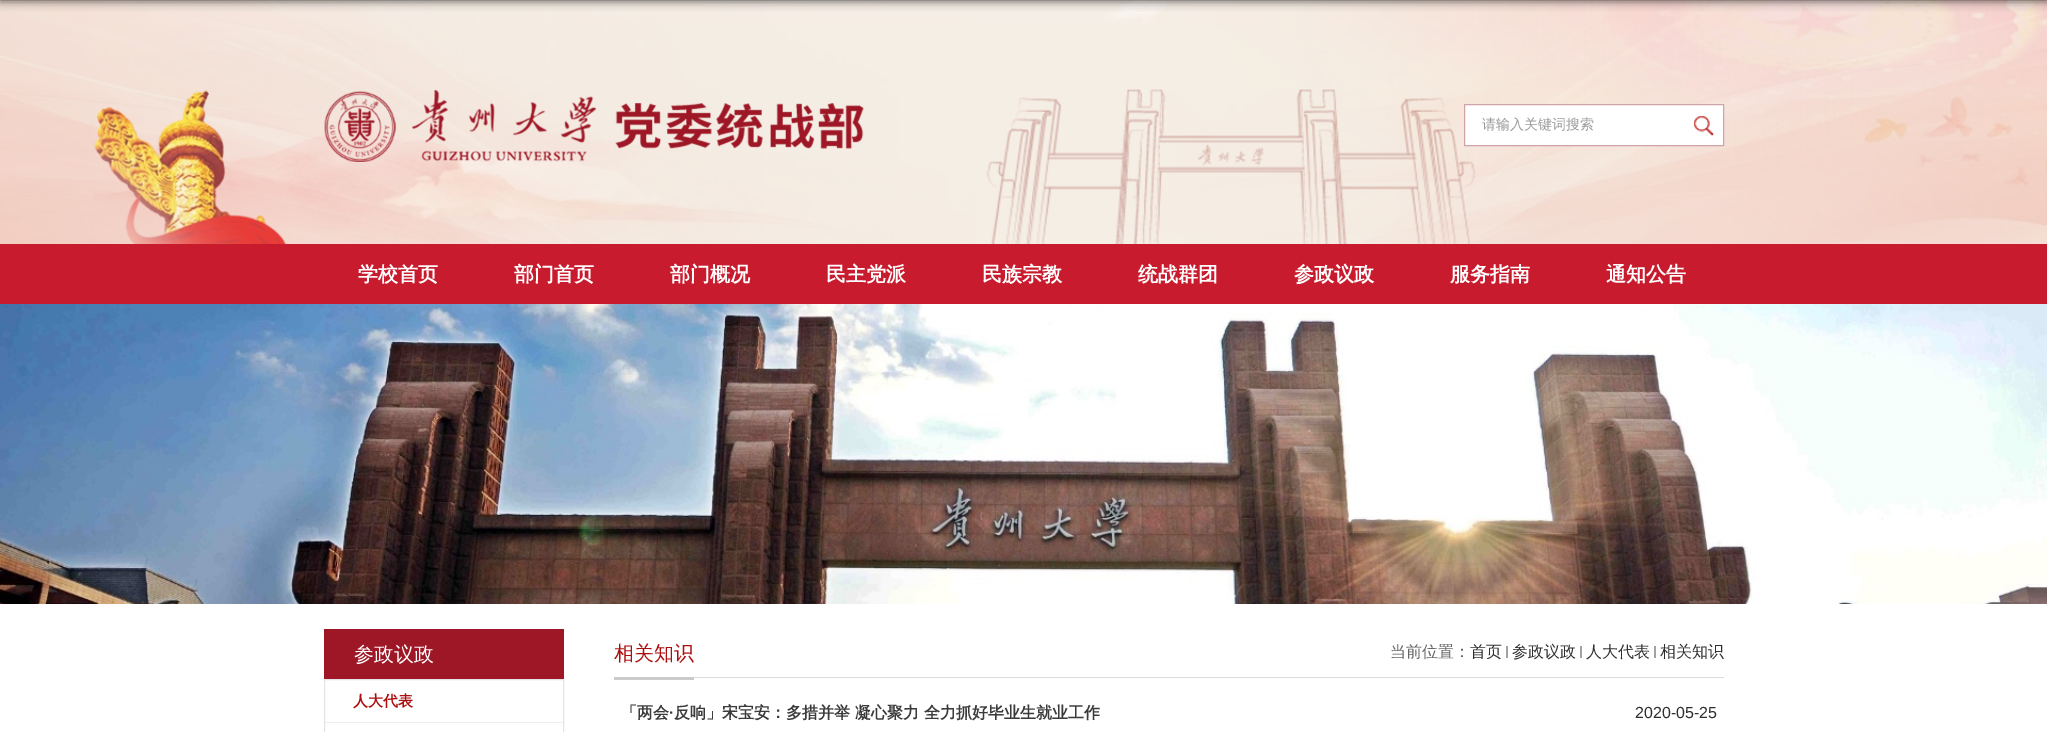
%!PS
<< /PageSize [2047 732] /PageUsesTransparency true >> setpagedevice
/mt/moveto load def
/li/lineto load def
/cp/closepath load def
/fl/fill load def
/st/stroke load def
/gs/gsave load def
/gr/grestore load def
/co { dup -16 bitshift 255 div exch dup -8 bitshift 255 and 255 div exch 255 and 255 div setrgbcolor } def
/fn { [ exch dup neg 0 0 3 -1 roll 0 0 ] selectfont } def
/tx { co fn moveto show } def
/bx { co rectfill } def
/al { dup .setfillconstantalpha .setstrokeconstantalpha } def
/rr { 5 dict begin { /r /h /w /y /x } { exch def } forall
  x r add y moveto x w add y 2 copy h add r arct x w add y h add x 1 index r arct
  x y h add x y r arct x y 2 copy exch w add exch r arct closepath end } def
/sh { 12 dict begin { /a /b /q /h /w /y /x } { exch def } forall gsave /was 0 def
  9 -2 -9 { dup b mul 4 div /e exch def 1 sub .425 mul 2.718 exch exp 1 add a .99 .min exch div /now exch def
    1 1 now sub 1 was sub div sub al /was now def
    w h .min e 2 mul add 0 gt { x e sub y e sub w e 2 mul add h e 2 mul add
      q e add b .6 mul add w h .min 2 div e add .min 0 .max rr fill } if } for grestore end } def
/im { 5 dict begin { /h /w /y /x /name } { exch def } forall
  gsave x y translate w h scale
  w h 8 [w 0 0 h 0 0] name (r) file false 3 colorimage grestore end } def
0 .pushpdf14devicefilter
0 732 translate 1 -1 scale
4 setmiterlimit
0 0 2047 732 16#FFFFFF bx
(media/1.raw) 0 0 2047 244 im
16#000000 co
0 -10 2047 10 0 5 .8 sh
(media/2.raw) 324 90 540 72 im
16#FFFFFF co
1464.5 104.5 mt 1723.5 104.5 li 1723.5 145.5 li 1464.5 145.5 li cp gs fl gr
16#CEA4A9 co
st
(media/3.raw) 1694 116 20 20 im
0 244 2047 60 16#C91B2E bx
(media/4.raw) 0 304 2047 300 im
324 629 240 50 16#9E1726 bx
16#E4E4E4 co
324.5 679.5 239 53 rectstroke
325 722 238 1 16#EEEEEE bx
694 677 1030 1 16#DBDBDB bx
614 677 80 3 16#CBCBCB bx
1506 646 2 12 16#A2A2A2 bx
1580 646 2 12 16#A2A2A2 bx
1654 646 2 12 16#A2A2A2 bx
(请输入关键词搜索) 1482 129 /WenQuanYiZenHei-Medium 14 16#999999 tx
(学校首页) 358 281 /WenQuanYiZenHei-Bold 20 16#FFFFFF tx
(部门首页) 514 281 /WenQuanYiZenHei-Bold 20 16#FFFFFF tx
(部门概况) 670 281 /WenQuanYiZenHei-Bold 20 16#FFFFFF tx
(民主党派) 826 281 /WenQuanYiZenHei-Bold 20 16#FFFFFF tx
(民族宗教) 982 281 /WenQuanYiZenHei-Bold 20 16#FFFFFF tx
(统战群团) 1138 281 /WenQuanYiZenHei-Bold 20 16#FFFFFF tx
(参政议政) 1294 281 /WenQuanYiZenHei-Bold 20 16#FFFFFF tx
(服务指南) 1450 281 /WenQuanYiZenHei-Bold 20 16#FFFFFF tx
(通知公告) 1606 281 /WenQuanYiZenHei-Bold 20 16#FFFFFF tx
(参政议政) 354 661 /WenQuanYiZenHei-Medium 20 16#FFFFFF tx
(人大代表) 353 706 /WenQuanYiZenHei-Bold 15 16#AC0D0D tx
(相关知识) 614 660 /WenQuanYiZenHei-Medium 20 16#AC0D0D tx
(当前位置：) 1390 657 /WenQuanYiZenHei-Medium 16 16#666666 tx
(首页) 1470 657 /WenQuanYiZenHei-Medium 16 16#2F2F2F tx
(参政议政) 1512 657 /WenQuanYiZenHei-Medium 16 16#2F2F2F tx
(人大代表) 1586 657 /WenQuanYiZenHei-Medium 16 16#2F2F2F tx
(相关知识) 1660 657 /WenQuanYiZenHei-Medium 16 16#2F2F2F tx
(「两会) 621 718 /WenQuanYiZenHei-Bold 16 16#3B3B3B tx
(·) 669 718 /LiberationSans-Bold 16 16#3B3B3B tx
(反响」宋宝安：多措并举 凝心聚力 全力抓好毕业生就业工作) 674 718 /WenQuanYiZenHei-Bold 16 16#3B3B3B tx
(2020-05-25) 1635 718 /LiberationSans-Regular 16 16#2F2F2F tx
.poppdf14devicefilter showpage
